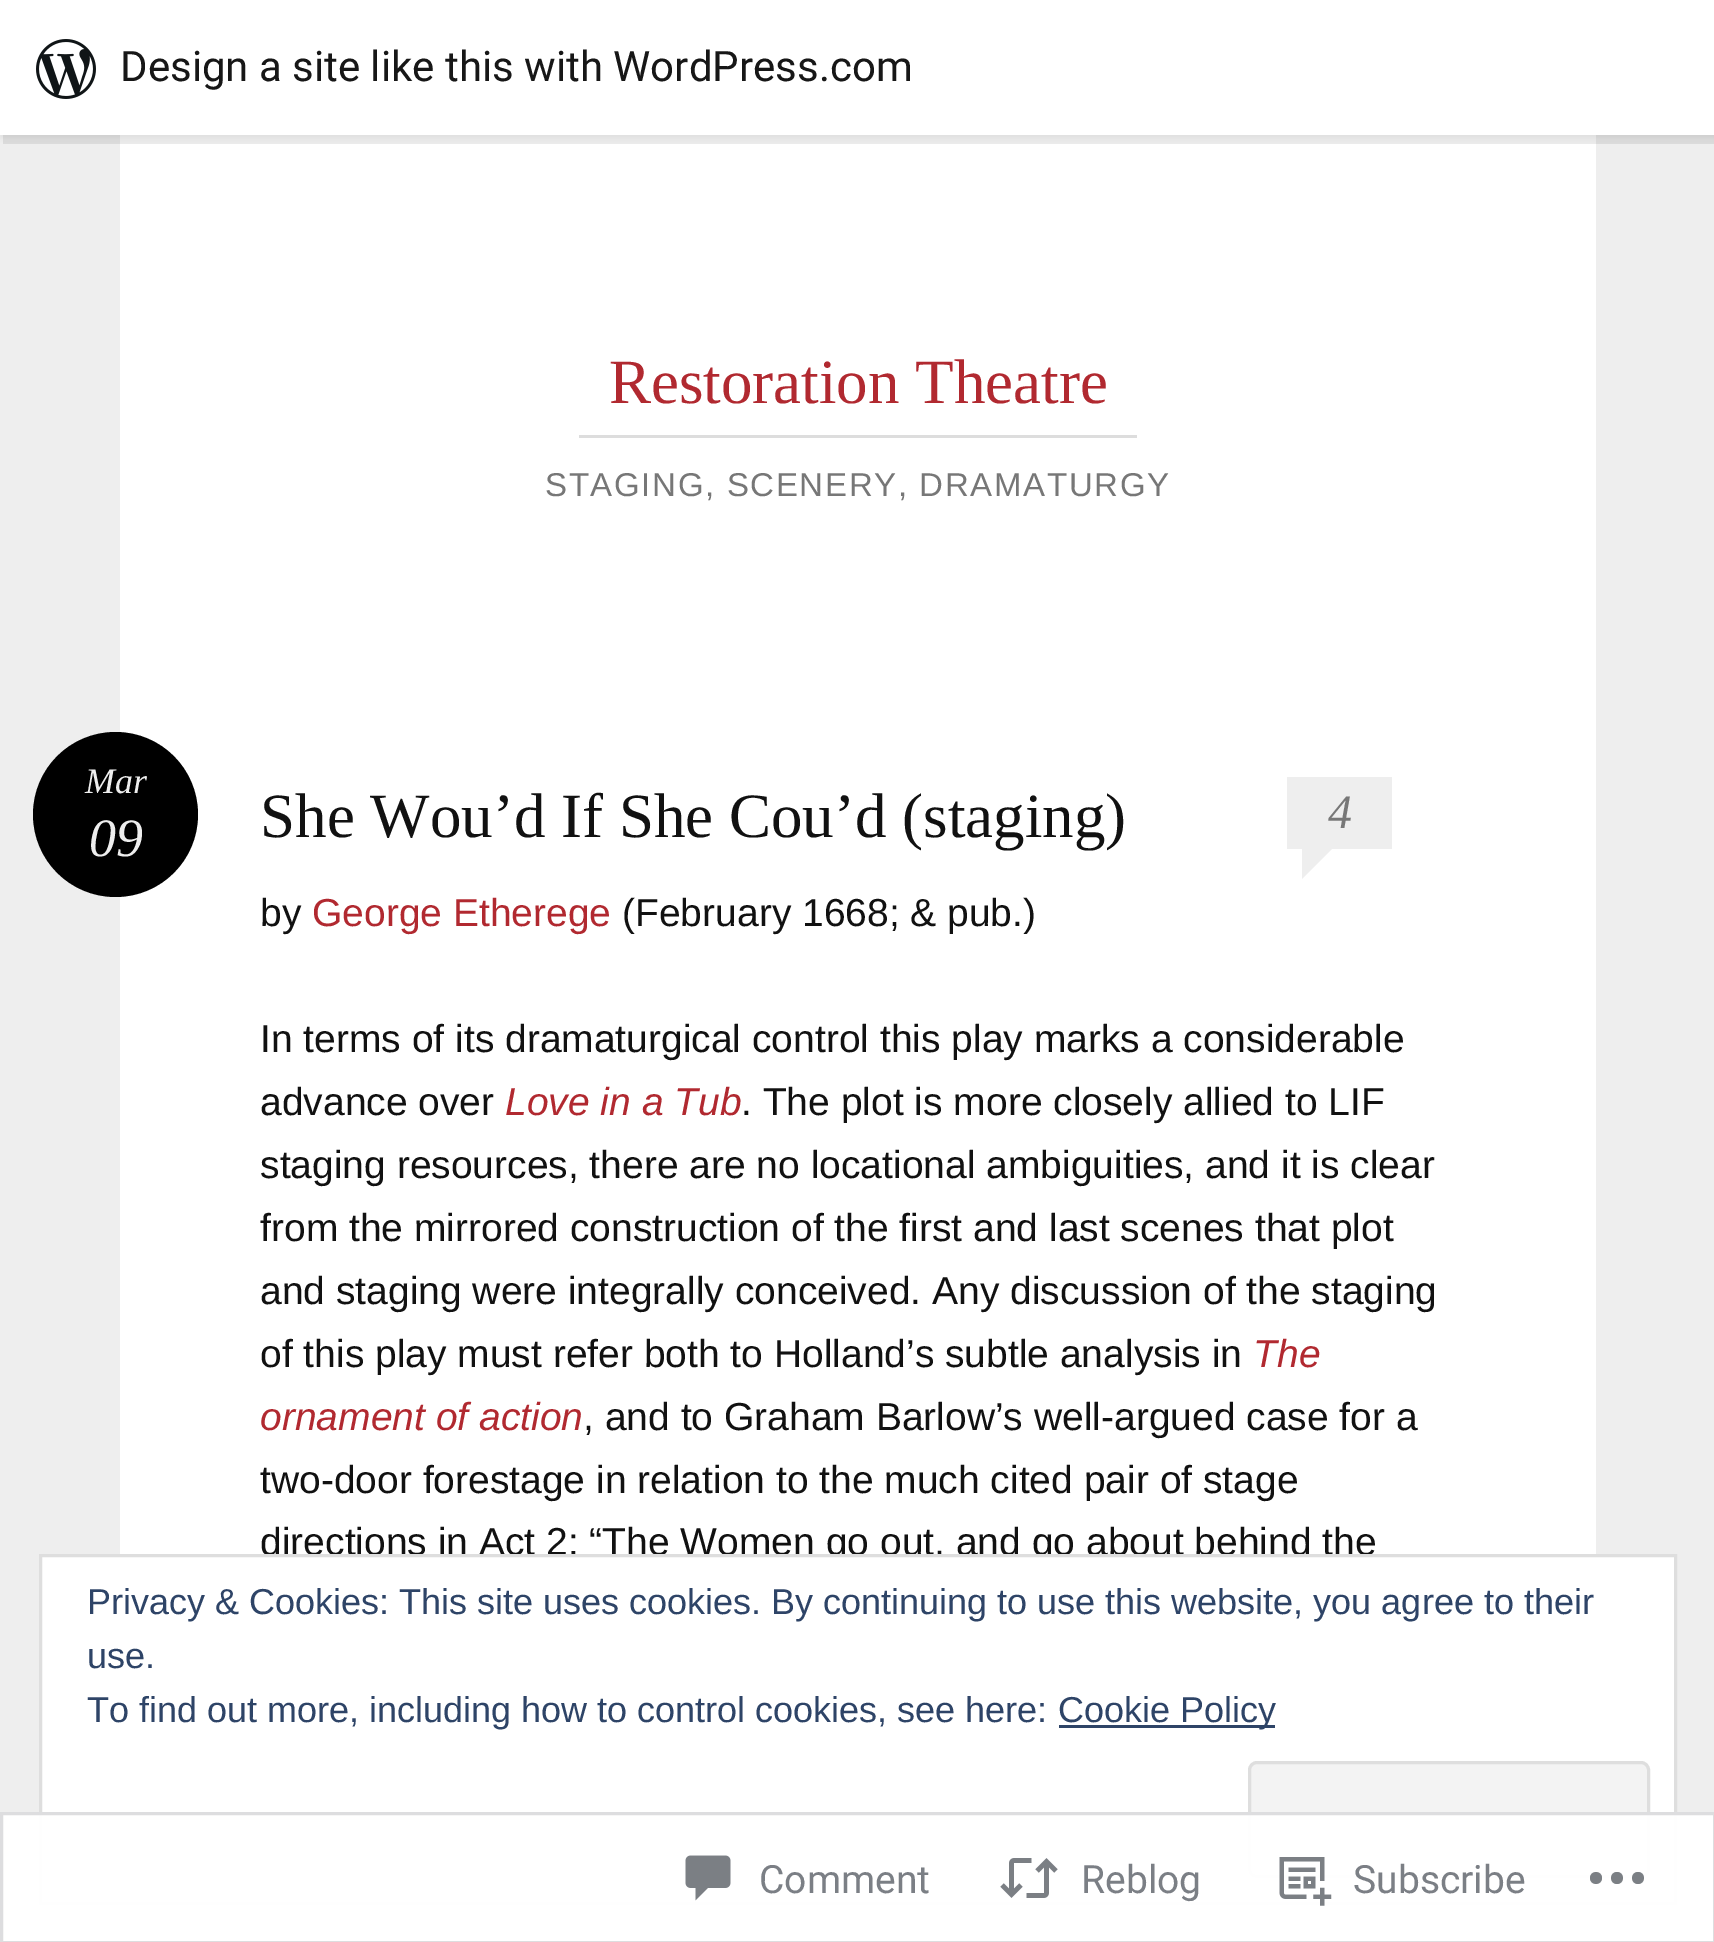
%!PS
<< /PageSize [1714 1942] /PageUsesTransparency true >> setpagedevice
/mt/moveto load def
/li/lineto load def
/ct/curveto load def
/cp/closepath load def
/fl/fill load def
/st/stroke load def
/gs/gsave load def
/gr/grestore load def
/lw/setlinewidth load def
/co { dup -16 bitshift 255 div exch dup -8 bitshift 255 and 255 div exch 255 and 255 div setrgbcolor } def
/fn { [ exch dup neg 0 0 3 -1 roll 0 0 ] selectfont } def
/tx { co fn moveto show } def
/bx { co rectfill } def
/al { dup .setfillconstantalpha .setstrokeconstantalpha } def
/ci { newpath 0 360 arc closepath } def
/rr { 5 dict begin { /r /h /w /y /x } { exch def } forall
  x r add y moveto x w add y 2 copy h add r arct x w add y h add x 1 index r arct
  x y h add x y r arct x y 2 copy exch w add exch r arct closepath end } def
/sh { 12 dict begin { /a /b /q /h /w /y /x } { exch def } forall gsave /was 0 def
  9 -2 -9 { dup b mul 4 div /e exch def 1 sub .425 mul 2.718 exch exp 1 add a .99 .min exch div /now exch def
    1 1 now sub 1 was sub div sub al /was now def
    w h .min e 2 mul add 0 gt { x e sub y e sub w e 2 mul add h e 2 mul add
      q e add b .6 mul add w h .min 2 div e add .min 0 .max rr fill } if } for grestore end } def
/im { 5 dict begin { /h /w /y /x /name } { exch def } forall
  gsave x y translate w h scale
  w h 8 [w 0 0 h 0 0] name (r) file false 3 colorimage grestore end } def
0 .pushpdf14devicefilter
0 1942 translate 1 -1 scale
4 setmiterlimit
0 0 1714 1942 16#EEEEEE bx
120 135 1476 1807 16#FFFFFF bx
16#000000 co
0 3 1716 135 0 3 .05 sh
0.08 al
3 135 mt 3 144 li 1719 144 li 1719 9 li 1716 9 li 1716 135 li cp fl
1 al
0 0 1714 135 16#FFFFFF bx
(media/1.raw) 36 39 60 60 im
579 435 558 3 16#DDDDDD bx
16#000000 co
115.5 814.5 82.5 ci fl
1287 777 105 72 16#EEEEEE bx
1302 879 mt 1302 849 li 1332 849 li cp fl
(Design a site like this with WordPress.com) 120 81 /Roboto-Regular 42 16#171717 tx
(Restoration Theatre) 609 403 /LiberationSerif-Regular 63 16#B12930 tx
/LiberationSans-Regular 33 fn
16#777777 co
545 496 mt 1.65 0 (STAGING, SCENERY, DRAMATURGY) ashow
(Mar) 85 793 /LiberationSerif-Italic 36 16#EEEEEE tx
(09) 89 856 /LiberationSerif-Italic 54 16#EEEEEE tx
(She Wou’d If She Cou’d \(staging\)) 260 837 /LiberationSerif-Regular 63 16#111111 tx
(4) 1328 828 /LiberationSerif-Italic 48 16#777777 tx
(by) 260 926 /LiberationSans-Regular 39 16#111111 tx
(George Etherege) 312 926 /LiberationSans-Regular 39 16#B12930 tx
(\(February 1668; & pub.\)) 622 926 /LiberationSans-Regular 39 16#111111 tx
(In terms of its dramaturgical control this play marks a considerable) 260 1052 /LiberationSans-Regular 39 16#111111 tx
(advance over) 260 1115 /LiberationSans-Regular 39 16#111111 tx
(Love in a Tub) 505 1115 /LiberationSans-Italic 39 16#B12930 tx
(. The plot is more closely allied to LIF) 741 1115 /LiberationSans-Regular 39 16#111111 tx
(staging resources, there are no locational ambiguities, and it is clear) 260 1178 /LiberationSans-Regular 39 16#111111 tx
(from the mirrored construction of the first and last scenes that plot) 260 1241 /LiberationSans-Regular 39 16#111111 tx
(and staging were integrally conceived. Any discussion of the staging) 260 1304 /LiberationSans-Regular 39 16#111111 tx
(of this play must refer both to Holland’s subtle analysis in) 260 1367 /LiberationSans-Regular 39 16#111111 tx
(The) 1253 1367 /LiberationSans-Italic 39 16#B12930 tx
(ornament of action) 260 1430 /LiberationSans-Italic 39 16#B12930 tx
(, and to Graham Barlow’s well-argued case for a) 583 1430 /LiberationSans-Regular 39 16#111111 tx
(two-door forestage in relation to the much cited pair of stage) 260 1493 /LiberationSans-Regular 39 16#111111 tx
(directions in Act 2: “The Women go out, and go about behind the) 260 1555 /LiberationSans-Regular 39 16#111111 tx
16#FFFFFF co
40.5 1555.5 mt 1675.5 1555.5 li 1675.5 1903.5 li 40.5 1903.5 li cp gs fl gr
16#DEDEDE co
3 lw
st
(Privacy & Cookies: This site uses cookies. By continuing to use this website, you agree to their) 87 1614 /LiberationSans-Regular 36 16#2E4467 tx
(use.) 87 1668 /LiberationSans-Regular 36 16#2E4467 tx
(To find out more, including how to control cookies, see here:) 87 1722 /LiberationSans-Regular 36 16#2E4467 tx
1059 1725 216 3 16#2E4467 bx
(Cookie Policy) 1058 1722 /LiberationSans-Regular 36 16#2E4467 tx
16#F3F3F3 co
1249.5 1762.5 399 114 7.5 rr gs fl gr
16#DEDEDE co
st
0.98 al
0 1812 1714 130 16#FFFFFF bx
16#DCDCDE co
1.5 1813.5 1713 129 rectstroke
1 al
(media/2.raw) 685 1855 46 46 im
(Comment) 759 1893 /Roboto-Regular 39 16#7B7F85 tx
(media/3.raw) 1000 1858 58 40 im
(Reblog) 1081 1893 /Roboto-Regular 39 16#7B7F85 tx
(media/4.raw) 1279 1857 53 49 im
(Subscribe) 1353 1893 /Roboto-Regular 39 16#7B7F85 tx
16#7B7F84 co
1602 1878 mt 1602 1886 1590 1886 1590 1878 ct 1590 1870 1602 1870 1602 1878 ct cp 1638 1872 mt 1630 1872 1630 1884 1638 1884 ct 1646 1884 1646 1872 1638 1872 ct cp 1617 1872 mt 1609 1872 1609 1884 1617 1884 ct 1625 1884 1625 1872 1617 1872 ct cp fl
.poppdf14devicefilter showpage
